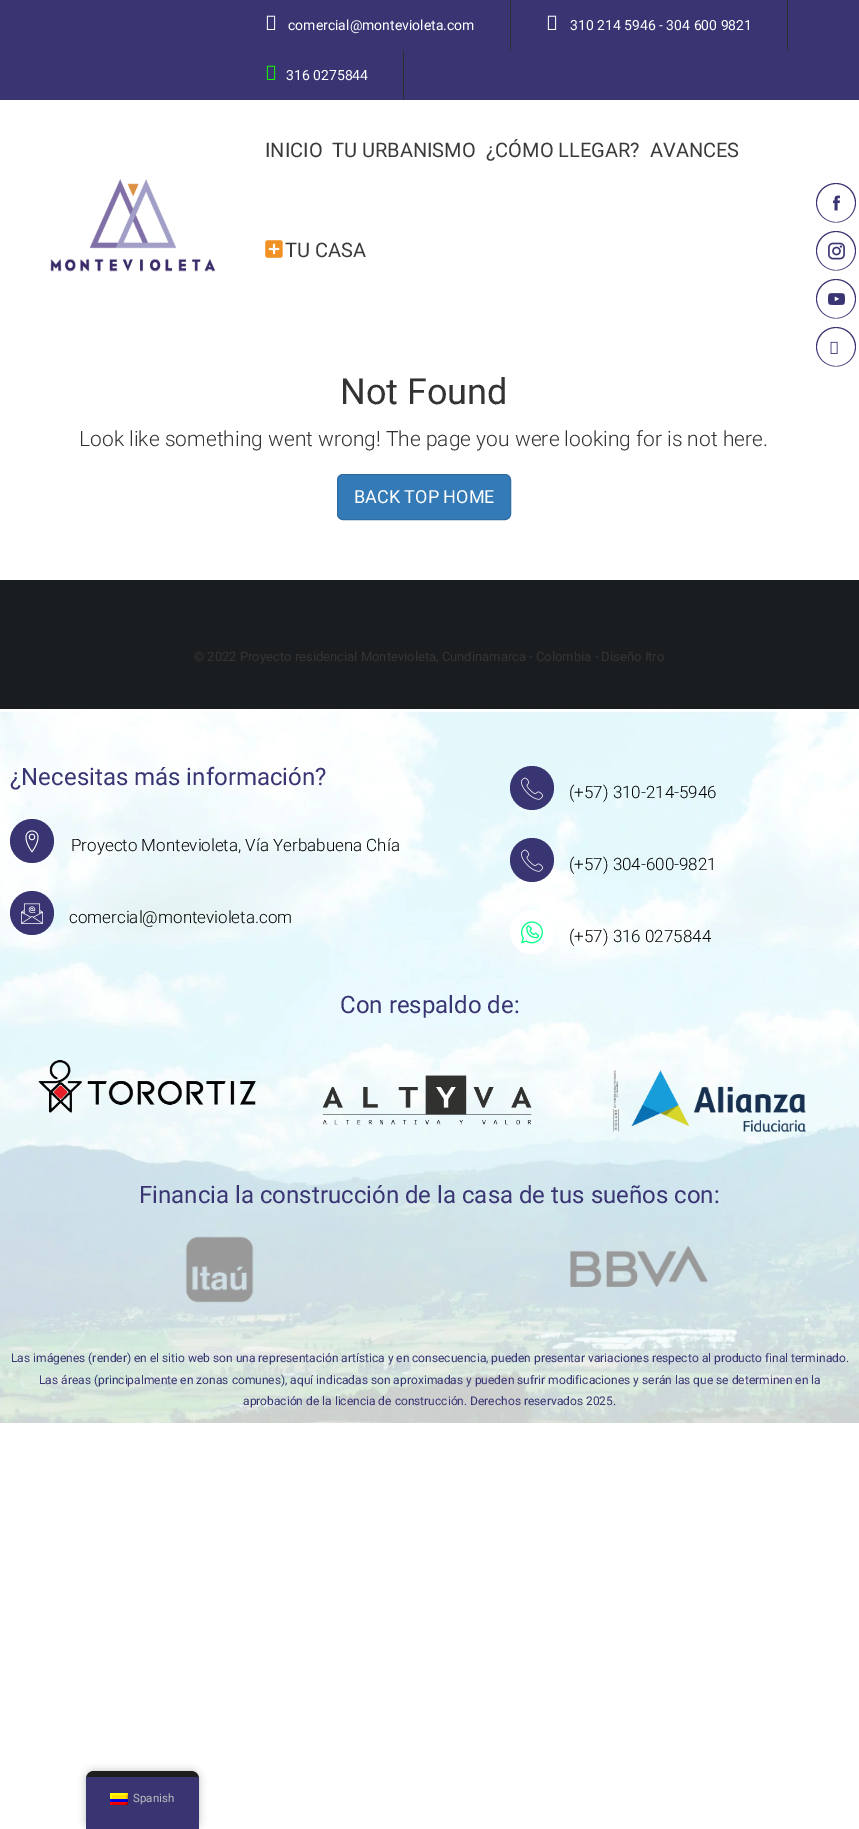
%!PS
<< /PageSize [859 1829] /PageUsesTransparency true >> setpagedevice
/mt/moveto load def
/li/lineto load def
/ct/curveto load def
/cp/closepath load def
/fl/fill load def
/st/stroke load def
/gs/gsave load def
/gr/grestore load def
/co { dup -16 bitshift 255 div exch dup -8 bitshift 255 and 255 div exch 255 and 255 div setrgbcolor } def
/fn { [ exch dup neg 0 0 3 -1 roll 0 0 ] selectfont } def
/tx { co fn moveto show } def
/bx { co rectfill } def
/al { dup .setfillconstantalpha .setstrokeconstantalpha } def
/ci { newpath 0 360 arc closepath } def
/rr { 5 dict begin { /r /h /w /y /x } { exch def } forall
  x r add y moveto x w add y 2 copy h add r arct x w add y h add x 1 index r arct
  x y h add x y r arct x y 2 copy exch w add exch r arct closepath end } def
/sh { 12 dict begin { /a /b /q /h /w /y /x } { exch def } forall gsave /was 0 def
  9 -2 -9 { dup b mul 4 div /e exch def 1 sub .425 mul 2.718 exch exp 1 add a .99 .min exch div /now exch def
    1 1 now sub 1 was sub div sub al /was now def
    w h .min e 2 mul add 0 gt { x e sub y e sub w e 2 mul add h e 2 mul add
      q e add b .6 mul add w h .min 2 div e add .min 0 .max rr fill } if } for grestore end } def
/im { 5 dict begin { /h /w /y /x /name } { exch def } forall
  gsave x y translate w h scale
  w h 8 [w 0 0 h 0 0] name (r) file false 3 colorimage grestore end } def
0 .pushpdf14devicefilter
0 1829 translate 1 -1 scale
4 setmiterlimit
0 0 859 1829 16#FFFFFF bx
0 0 859 100 16#393572 bx
510 0 1 50 16#2B3034 bx
(media/1.raw) 266 15 10 15 im
787 0 1 50 16#2B3034 bx
(media/1.raw) 547 15 10 15 im
403 50 1 50 16#2B3034 bx
(media/2.raw) 266 65 10 15 im
(media/3.raw) 50 179 166 93 im
(media/4.raw) 265 240 18 18 im
16#337AB7 co
337.5 474.5 173 45 5.5 rr gs fl gr
16#2E6DA4 co
st
0 580 859 129 16#1A1D1F bx
(media/5.raw) 0 710 859 713 im
16#393572 co
32 841 22 ci fl
(media/6.raw) 25 830 14 23 im
32 913 22 ci fl
(media/7.raw) 21 903 22 21 im
532 788 22 ci fl
(media/8.raw) 521 777 22 23 im
532 860 22 ci fl
(media/8.raw) 521 849 22 23 im
16#FFFFFF co
532 932 22 ci fl
(media/9.raw) 521 921 22 23 im
(media/10.raw) 38 1060 218 53 im
(media/11.raw) 322 1075 210 50 im
(media/12.raw) 613 1070 193 62 im
(media/13.raw) 185 1236 69 67 im
(media/14.raw) 570 1246 138 41 im
16#393572 co
836 183 mt 847 183 856 192 856 202.5 ct 856 213.5 847 222.5 836 222.5 ct 825 222.5 816 213.5 816 202.5 ct 816 192 825 183 836 183 ct cp 836 184 mt 825.5 184 817 192.5 817 203 ct 817 213.5 825.5 222 836 222 ct 846.5 222 855 213.5 855 203 ct 855 192.5 846.5 184 836 184 ct cp eofill
(media/15.raw) 833 195 7 16 im
836 231 mt 847 231 856 240 856 250.5 ct 856 261.5 847 270.5 836 270.5 ct 825 270.5 816 261.5 816 250.5 ct 816 240 825 231 836 231 ct cp 836 232 mt 825.5 232 817 240.5 817 251 ct 817 261.5 825.5 270 836 270 ct 846.5 270 855 261.5 855 251 ct 855 240.5 846.5 232 836 232 ct cp eofill
(media/16.raw) 828 242 17 18 im
836 279 mt 847 279 856 288 856 298.5 ct 856 309.5 847 318.5 836 318.5 ct 825 318.5 816 309.5 816 298.5 ct 816 288 825 279 836 279 ct cp 836 280 mt 825.5 280 817 288.5 817 299 ct 817 309.5 825.5 318 836 318 ct 846.5 318 855 309.5 855 299 ct 855 288.5 846.5 280 836 280 ct cp eofill
(media/17.raw) 828 293 17 12 im
836 327 mt 847 327 856 336 856 346.5 ct 856 357.5 847 366.5 836 366.5 ct 825 366.5 816 357.5 816 346.5 ct 816 336 825 327 836 327 ct cp 836 328 mt 825.5 328 817 336.5 817 347 ct 817 357.5 825.5 366 836 366 ct 846.5 366 855 357.5 855 347 ct 855 336.5 846.5 328 836 328 ct cp eofill
(media/18.raw) 830 341 8 13 im
16#000000 co
86 1771 113 58 8 4 .25 sh
16#1E1E1E co
94 1771 mt 191 1771 li 195.5 1771 199 1774.5 199 1779 ct 199 1829 li 86 1829 li 86 1779 li 86 1774.5 89.5 1771 94 1771 ct cp fl
86 1777 113 52 16#393572 bx
(media/19.raw) 110 1793 18 12 im
(comercial@montevioleta.com) 288 30 /Roboto-Regular 14 16#FFFFFF tx
(310 214 5946 - 304 600 9821) 570 30 /Roboto-Regular 14 16#FFFFFF tx
(316 0275844) 286 80 /Roboto-Regular 14 16#FFFFFF tx
(INICIO) 265 157 /Roboto-Regular 20 16#3A3A3A tx
(TU URBANISMO) 332 157 /Roboto-Regular 20 16#3A3A3A tx
(¿CÓMO LLEGAR?) 486 157 /Roboto-Regular 20 16#3A3A3A tx
(AVANCES) 650 157 /Roboto-Regular 20 16#3A3A3A tx
(TU CASA) 285 257 /Roboto-Regular 20 16#3A3A3A tx
(Not Found) 340 404 /Roboto-Regular 36 16#333333 tx
(Look like something went wrong! The page you were looking for is not here.) 79 446 /Roboto-Light 21 16#333333 tx
(BACK TOP HOME) 354 503 /Roboto-Regular 18 16#FFFFFF tx
(© 2022 Proyecto residencial Montevioleta, Cundinamarca - Colombia - Diseño Itro) 194 661 /Roboto-Regular 13 16#333333 tx
(¿Necesitas más información?) 10 785 /Roboto-Regular 24 16#393572 tx
(Proyecto Montevioleta, Vía Yerbabuena Chía) 71 851 /Roboto-Light 17 16#000000 tx
(comercial@montevioleta.com) 69 923 /Roboto-Light 17 16#000000 tx
(\(+57\) 310-214-5946) 569 798 /Roboto-Light 17 16#000000 tx
(\(+57\) 304-600-9821) 569 870 /Roboto-Light 17 16#000000 tx
(\(+57\) 316 0275844) 569 942 /Roboto-Light 17 16#000000 tx
(Con respaldo de:) 340 1013 /Roboto-Regular 24 16#393572 tx
(Financia la construcción de la casa de tus sueños con:) 139 1203 /Roboto-Regular 24 16#393572 tx
(Las imágenes \(render\) en el sitio web son una representación artística y en consecuencia, pueden presentar variaciones respecto al producto final terminado.) 11 1362 /Roboto-Regular 12 16#393572 tx
(Las áreas \(principalmente en zonas comunes\), aquí indicadas son aproximadas y pueden sufrir modificaciones y serán las que se determinen en la) 39 1384 /Roboto-Regular 12 16#393572 tx
(aprobación de la licencia de construcción. Derechos reservados 2025.) 243 1405 /Roboto-Regular 12 16#393572 tx
(Spanish) 133 1802 /Roboto-Regular 11.5 16#BDBDBD tx
.poppdf14devicefilter showpage
